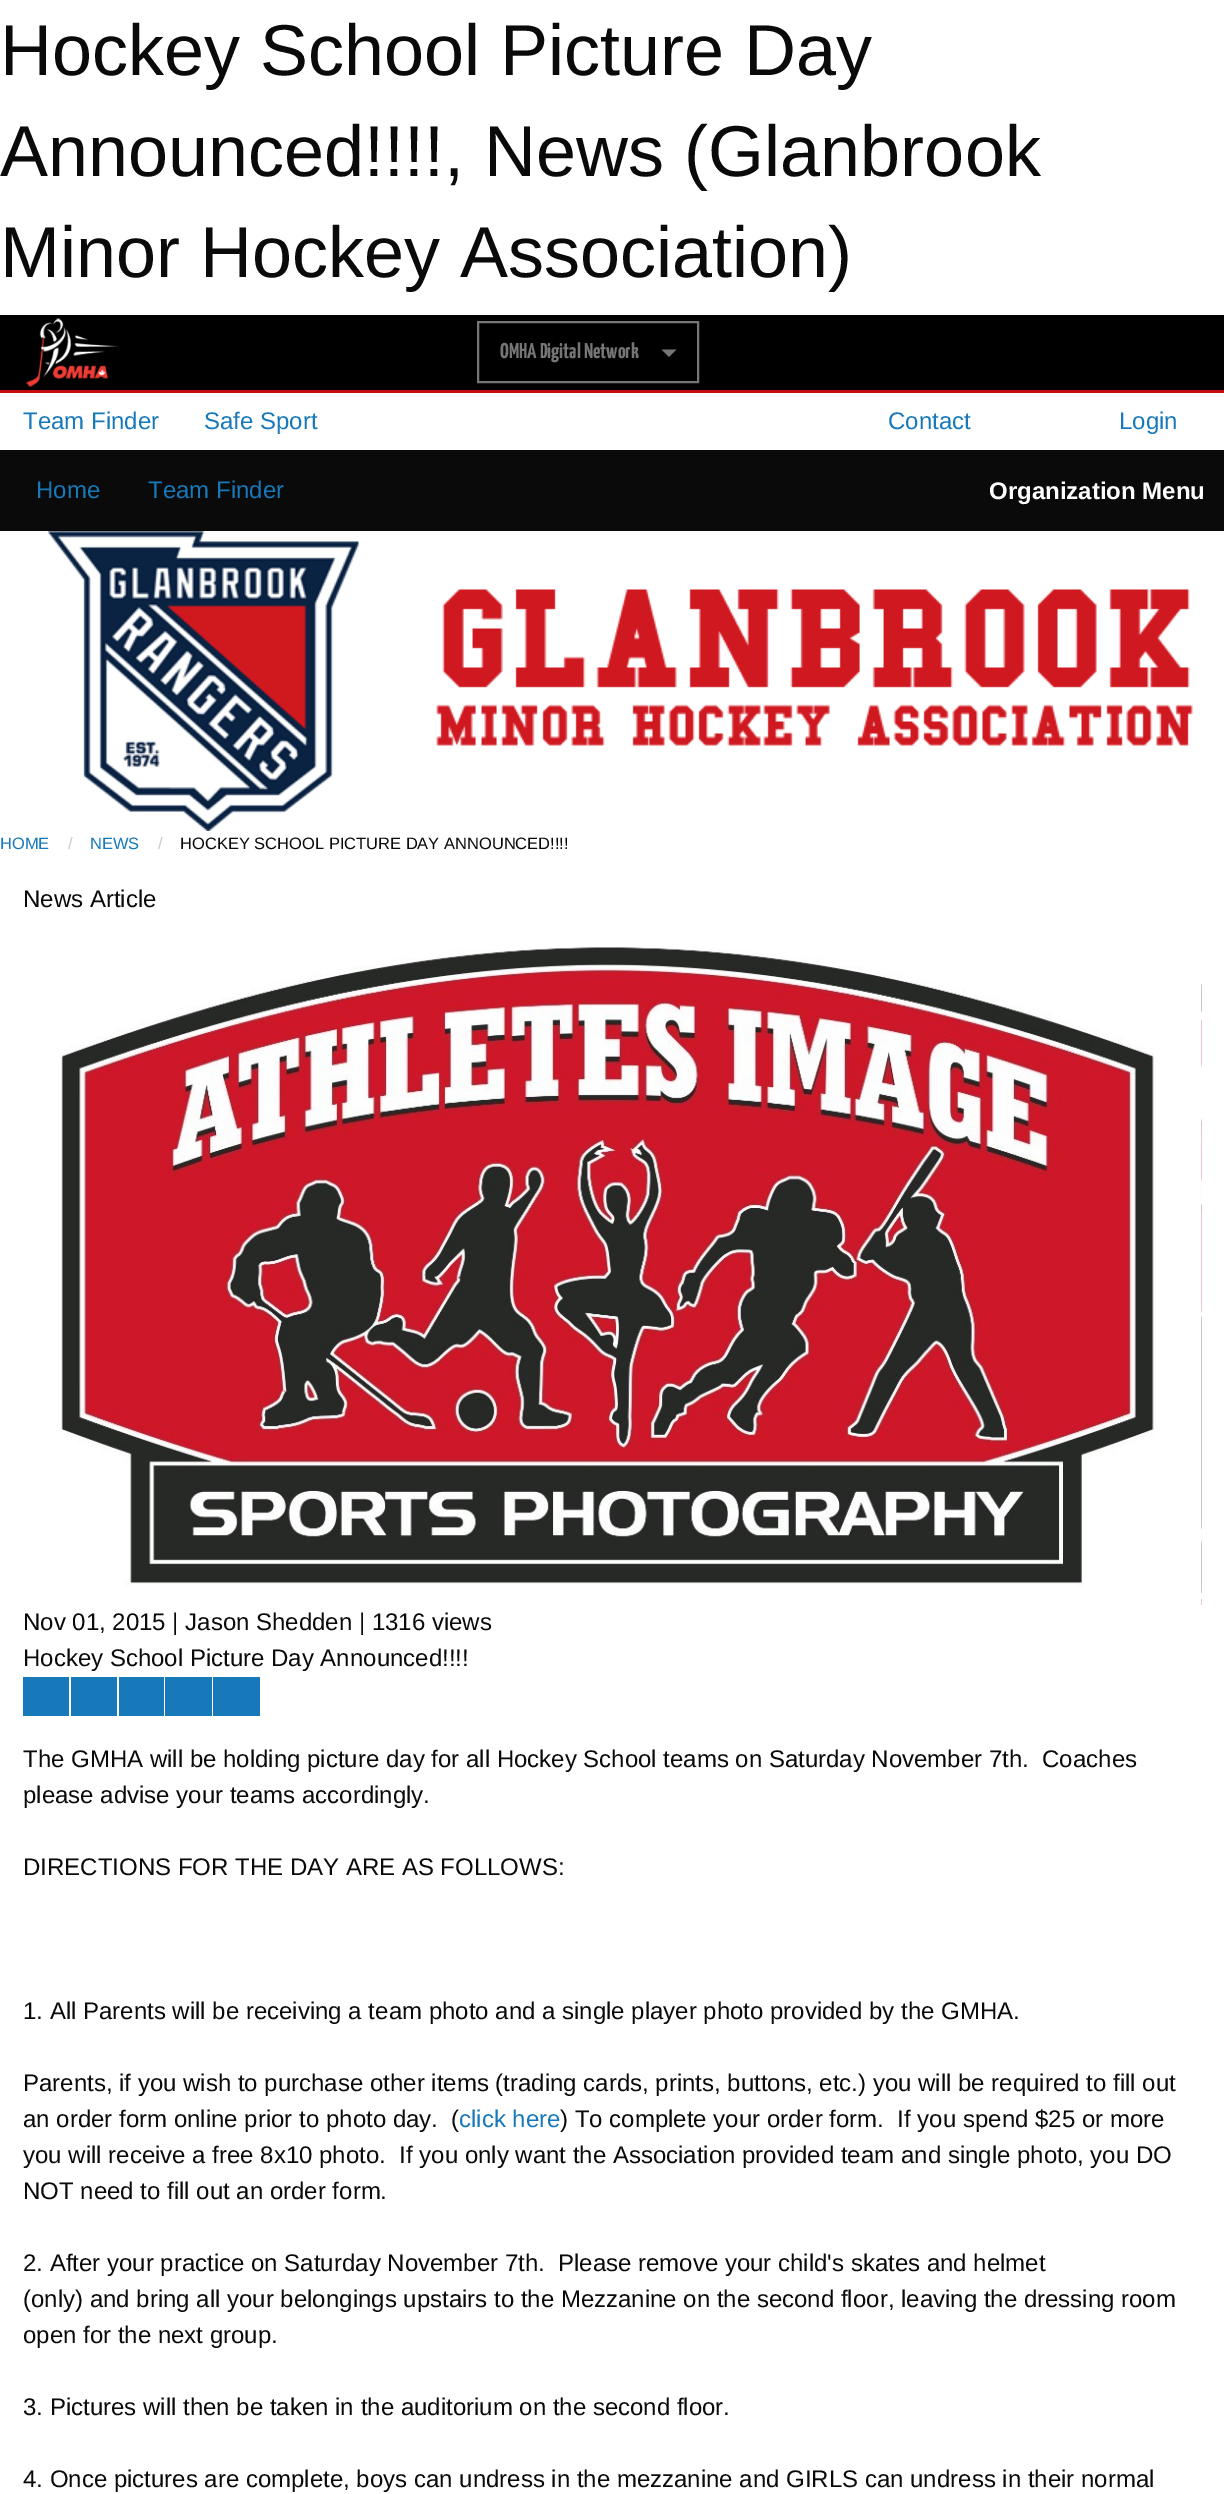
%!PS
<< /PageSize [1224 2494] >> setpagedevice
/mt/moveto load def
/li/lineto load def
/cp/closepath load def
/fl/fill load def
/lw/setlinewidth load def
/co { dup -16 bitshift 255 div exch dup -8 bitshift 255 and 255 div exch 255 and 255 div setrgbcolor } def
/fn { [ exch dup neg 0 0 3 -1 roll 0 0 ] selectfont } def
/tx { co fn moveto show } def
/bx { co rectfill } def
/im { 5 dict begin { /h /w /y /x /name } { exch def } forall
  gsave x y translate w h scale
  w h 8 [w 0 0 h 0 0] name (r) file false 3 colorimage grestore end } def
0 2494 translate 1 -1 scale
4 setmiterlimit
0 0 1224 2494 16#FFFFFF bx
0 315 1224 75 16#000000 bx
0 390 1224 3 16#C60C0C bx
(media/1.raw) 26 318 93 69 im
16#767676 co
2 lw
478 322 220 60 rectstroke
661.5 349.5 mt 676.5 349.5 li 669 357 li cp fl
0 450 1224 81 16#0A0A0A bx
(media/2.raw) 48 531 311 300 im
(media/3.raw) 436 589 757 157 im
(media/4.raw) 1201 956 1 649 im
(media/5.raw) 61 947 1141 658 im
23 1677 46 39 16#1779BA bx
71 1677 46 39 16#1779BA bx
119 1677 45 39 16#1779BA bx
165 1677 47 39 16#1779BA bx
213 1677 47 39 16#1779BA bx
(Hockey School Picture Day) 0 75 /LiberationSans-Regular 72 16#0A0A0A tx
(Announced!!!!, News \(Glanbrook) 0 176 /LiberationSans-Regular 72 16#0A0A0A tx
(Minor Hockey Association\)) 0 277 /LiberationSans-Regular 72 16#0A0A0A tx
(OMHA Digital Network) 500 358 /YanoneKaffeesatz-ExtraLight 21.5 16#767676 tx
(Team Finder) 23 429 /LiberationSans-Regular 24 16#1779BA tx
(Safe Sport) 204 429 /LiberationSans-Regular 24 16#1779BA tx
(Contact) 888 429 /LiberationSans-Regular 24 16#1779BA tx
(Login) 1119 429 /LiberationSans-Regular 24 16#1779BA tx
(Home) 36 498 /LiberationSans-Regular 24 16#1779BA tx
(Team Finder) 148 498 /LiberationSans-Regular 24 16#1779BA tx
(Organization Menu) 989 499 /LiberationSans-Bold 24 16#FEFEFE tx
(HOME) 0 849 /LiberationSans-Regular 16.5 16#1779BA tx
(/) 68 849 /LiberationSans-Regular 16.5 16#CACACA tx
(NEWS) 90 849 /LiberationSans-Regular 16.5 16#1779BA tx
(/) 158 849 /LiberationSans-Regular 16.5 16#CACACA tx
(HOCKEY SCHOOL PICTURE DAY ANNOUNCED!!!!) 180 849 /LiberationSans-Regular 16.5 16#0A0A0A tx
(News Article) 23 907 /LiberationSans-Regular 24 16#0A0A0A tx
(Nov 01, 2015 | Jason Shedden | 1316 views) 23 1630 /LiberationSans-Regular 24 16#0A0A0A tx
(Hockey School Picture Day Announced!!!!) 23 1666 /LiberationSans-Regular 24 16#0A0A0A tx
(The GMHA will be holding picture day for all Hockey School teams on Saturday November 7th.  Coaches) 23 1767 /LiberationSans-Regular 24 16#0A0A0A tx
(please advise your teams accordingly.) 23 1803 /LiberationSans-Regular 24 16#0A0A0A tx
(DIRECTIONS FOR THE DAY ARE AS FOLLOWS:) 23 1875 /LiberationSans-Regular 24 16#0A0A0A tx
(1. All Parents will be receiving a team photo and a single player photo provided by the GMHA.) 23 2019 /LiberationSans-Regular 24 16#0A0A0A tx
(Parents, if you wish to purchase other items \(trading cards, prints, buttons, etc.\) you will be required to fill out) 23 2091 /LiberationSans-Regular 24 16#0A0A0A tx
(an order form online prior to photo day.  \() 23 2127 /LiberationSans-Regular 24 16#0A0A0A tx
(click here) 459 2127 /LiberationSans-Regular 24 16#1779BA tx
(\) To complete your order form.  If you spend $25 or more) 560 2127 /LiberationSans-Regular 24 16#0A0A0A tx
(you will receive a free 8x10 photo.  If you only want the Association provided team and single photo, you DO) 23 2163 /LiberationSans-Regular 24 16#0A0A0A tx
(NOT need to fill out an order form.) 23 2199 /LiberationSans-Regular 24 16#0A0A0A tx
(2. After your practice on Saturday November 7th.  Please remove your child's skates and helmet) 23 2271 /LiberationSans-Regular 24 16#0A0A0A tx
(\(only\) and bring all your belongings upstairs to the Mezzanine on the second floor, leaving the dressing room) 23 2307 /LiberationSans-Regular 24 16#0A0A0A tx
(open for the next group.) 23 2343 /LiberationSans-Regular 24 16#0A0A0A tx
(3. Pictures will then be taken in the auditorium on the second floor.) 23 2415 /LiberationSans-Regular 24 16#0A0A0A tx
(4. Once pictures are complete, boys can undress in the mezzanine and GIRLS can undress in their normal) 23 2487 /LiberationSans-Regular 24 16#0A0A0A tx
showpage
